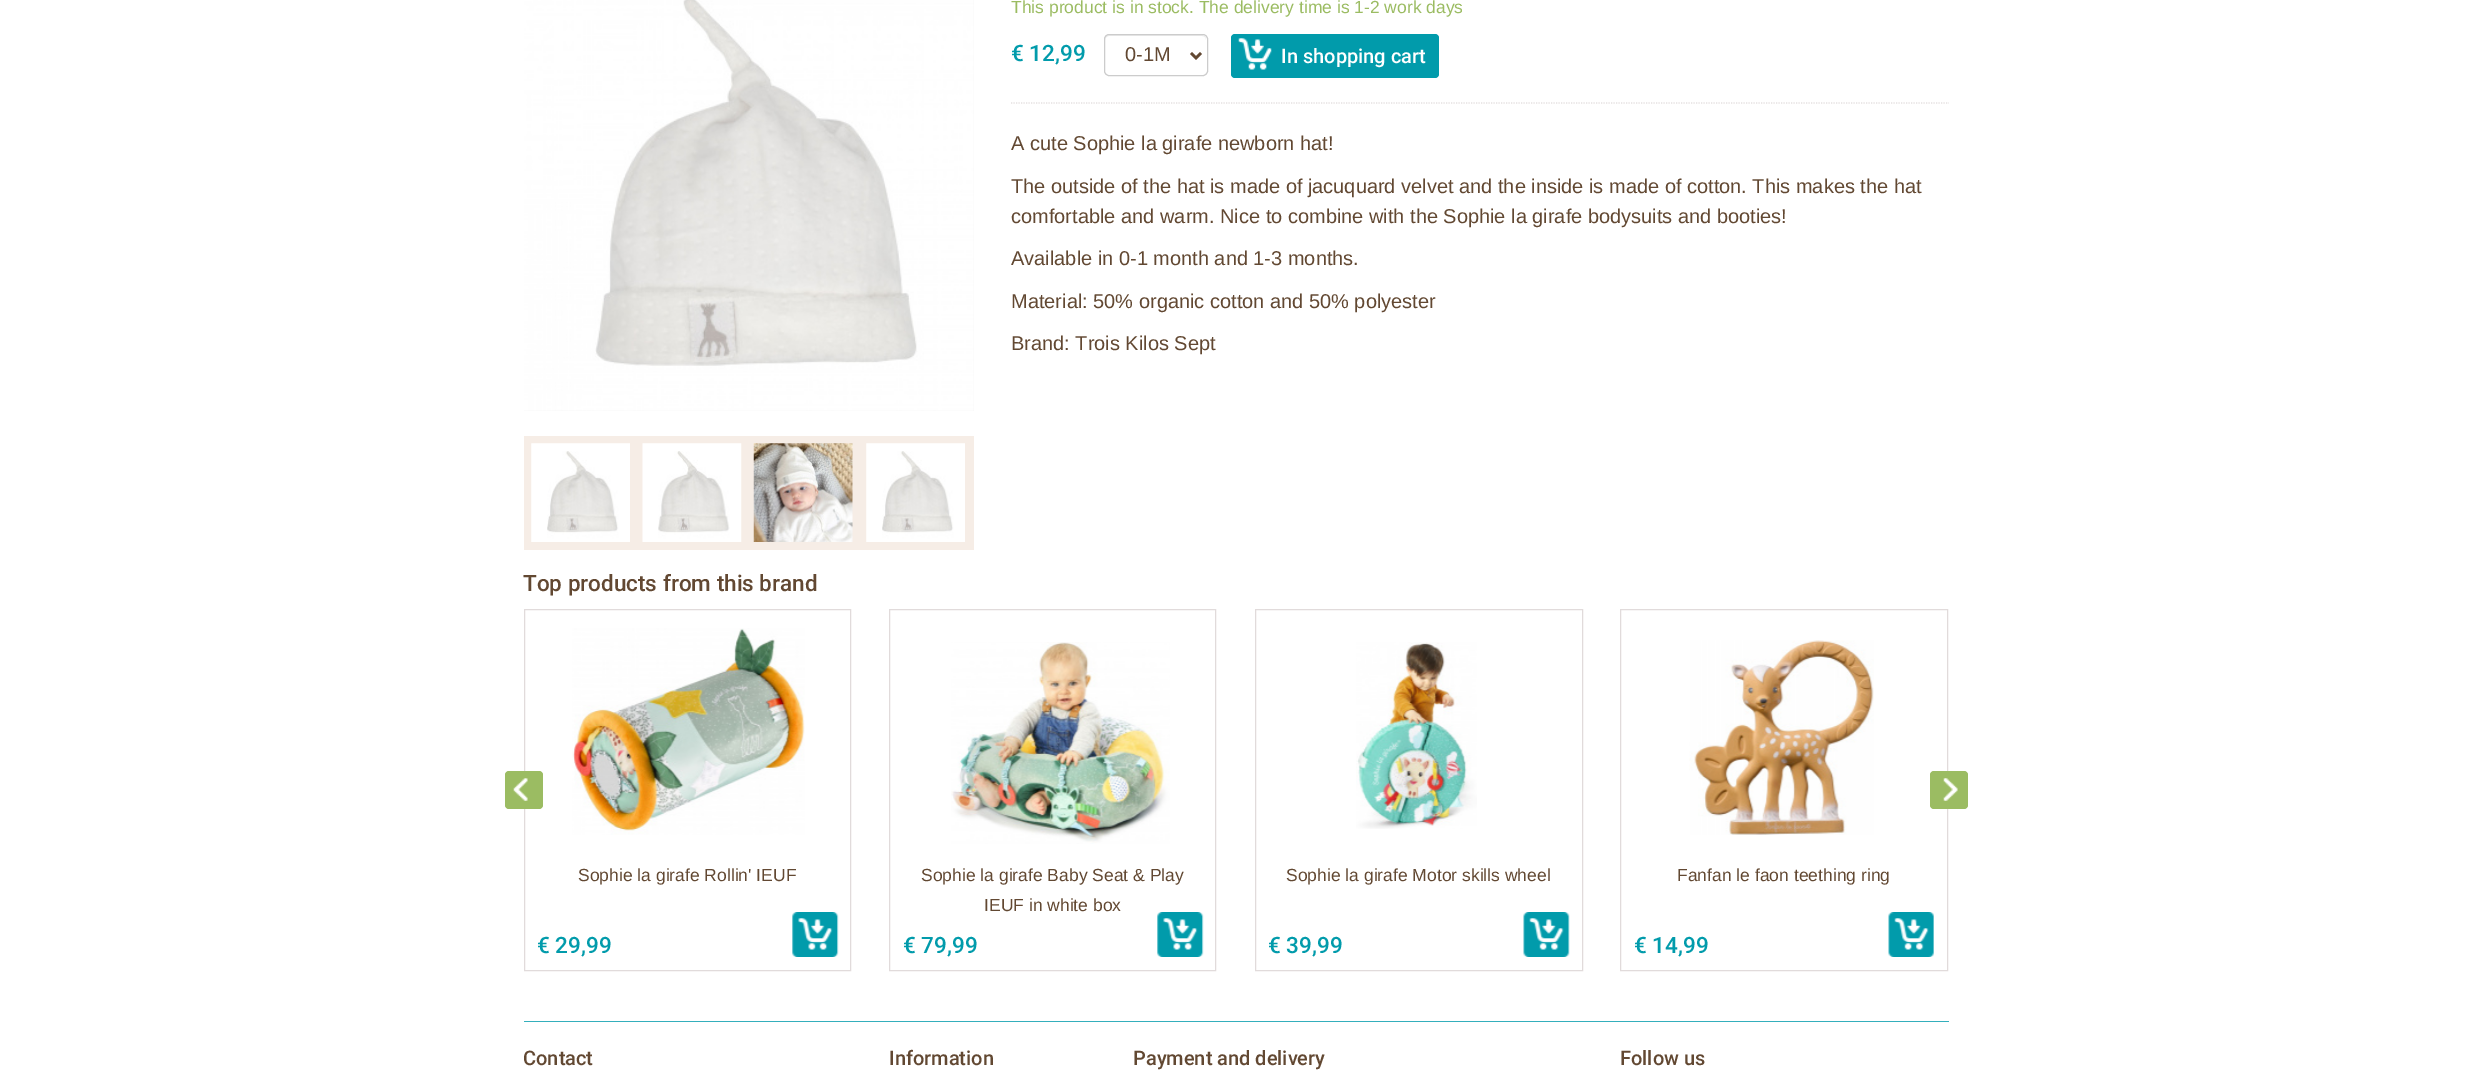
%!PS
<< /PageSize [2471 1082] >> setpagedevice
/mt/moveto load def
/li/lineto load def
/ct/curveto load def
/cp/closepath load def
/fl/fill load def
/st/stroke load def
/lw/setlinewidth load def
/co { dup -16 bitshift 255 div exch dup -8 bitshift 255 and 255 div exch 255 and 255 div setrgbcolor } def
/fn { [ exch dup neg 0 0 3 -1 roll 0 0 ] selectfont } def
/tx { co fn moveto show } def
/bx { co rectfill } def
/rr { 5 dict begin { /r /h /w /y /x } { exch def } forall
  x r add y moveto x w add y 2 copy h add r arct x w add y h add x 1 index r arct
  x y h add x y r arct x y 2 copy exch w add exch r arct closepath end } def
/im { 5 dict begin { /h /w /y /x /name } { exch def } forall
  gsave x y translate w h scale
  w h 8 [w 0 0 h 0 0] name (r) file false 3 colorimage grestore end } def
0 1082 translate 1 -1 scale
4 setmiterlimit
0 0 2471 1082 16#FFFFFF bx
524 0 450 411 16#F2F2F2 bx
(media/1.raw) 524 0 450 411 im
524 436 450 114 16#F6EDE6 bx
(media/2.raw) 531 443 99 99 im
(media/3.raw) 642 443 100 99 im
(media/4.raw) 753 443 100 99 im
(media/2.raw) 866 443 99 99 im
16#ECECEC co
1109 36 mt 1202 36 li 1205 36 1206 38 1206 40 ct 1206 31 1191 35 1186 35 ct 1124 35 li 1120 35 1105 31 1105 40 ct 1105 38 1107 36 1109 36 ct cp fl
16#CCCCCC co
1104.5 34.5 103 41 4.5 rr st
16#624832 co
2.5 lw
1191 53 mt 1196 58 li 1201 53 li st
16#019BAB co
1231 34 208 44 4 rr fl
(media/5.raw) 1238 38 34 32 im
16#E5E0E0 co
1.2 lw
[1.25 1.25] 0 setdash
1011 103 mt 1949 103 li st
16#E1DBDB co
1 lw
[] 0 setdash
524.5 609.5 326 361 rectstroke
16#9BBC62 co
505 771 38 38 4 rr fl
(media/6.raw) 513 778 15 23 im
16#E1DBDB co
1620.5 609.5 327 361 rectstroke
16#9BBC62 co
1930 771 38 38 4 rr fl
(media/7.raw) 1943 778 15 23 im
(media/8.raw) 572 628 233 207 im
(media/9.raw) 792 912 47 45 im
16#E1DBDB co
889.5 609.5 326 361 rectstroke
(media/10.raw) 951 642 219 202 im
(media/9.raw) 1157 912 47 45 im
1255.5 609.5 327 361 rectstroke
(media/11.raw) 1356 642 121 187 im
(media/12.raw) 1523 912 47 45 im
(media/13.raw) 1689 640 185 195 im
(media/14.raw) 1888 912 46 45 im
524 1021 1425 1 16#34AFBC bx
(This product is in stock. The delivery time is 1-2 work days) 1011 13 /LiberationSans-Regular 17.5 16#9BBC62 tx
(€ 12,99) 1011 61 /Roboto-Medium 22.5 16#019BAB tx
(0-1M) 1125 61 /LiberationSans-Regular 20 16#624832 tx
(In shopping cart) 1281 63 /Roboto-Medium 20 16#FFFFFF tx
(A cute Sophie la girafe newborn hat!) 1011 150 /LiberationSans-Regular 20 16#624832 tx
(The outside of the hat is made of jacuquard velvet and the inside is made of cotton. This makes the hat) 1011 193 /LiberationSans-Regular 20 16#624832 tx
(comfortable and warm. Nice to combine with the Sophie la girafe bodysuits and booties!) 1011 223 /LiberationSans-Regular 20 16#624832 tx
(Available in 0-1 month and 1-3 months.) 1011 265 /LiberationSans-Regular 20 16#624832 tx
(Material: 50% organic cotton and 50% polyester) 1011 308 /LiberationSans-Regular 20 16#624832 tx
(Brand: Trois Kilos Sept) 1011 350 /LiberationSans-Regular 20 16#624832 tx
(Top products from this brand) 523 591 /Roboto-Medium 22.5 16#624832 tx
(Sophie la girafe Rollin' IEUF) 578 881 /LiberationSans-Regular 17.5 16#624832 tx
(€ 29,99) 537 953 /Roboto-Medium 22.5 16#019BAB tx
(Sophie la girafe Baby Seat & Play) 921 881 /LiberationSans-Regular 17.5 16#624832 tx
(IEUF in white box) 984 911 /LiberationSans-Regular 17.5 16#624832 tx
(€ 79,99) 903 953 /Roboto-Medium 22.5 16#019BAB tx
(Sophie la girafe Motor skills wheel) 1286 881 /LiberationSans-Regular 17.5 16#624832 tx
(€ 39,99) 1268 953 /Roboto-Medium 22.5 16#019BAB tx
(Fanfan le faon teething ring) 1677 881 /LiberationSans-Regular 17.5 16#624832 tx
(€ 14,99) 1634 953 /Roboto-Medium 22.5 16#019BAB tx
(Contact) 523 1065 /Roboto-Medium 20 16#624832 tx
(Information) 889 1065 /Roboto-Medium 20 16#624832 tx
(Payment and delivery) 1133 1065 /Roboto-Medium 20 16#624832 tx
(Follow us) 1620 1065 /Roboto-Medium 20 16#624832 tx
showpage
